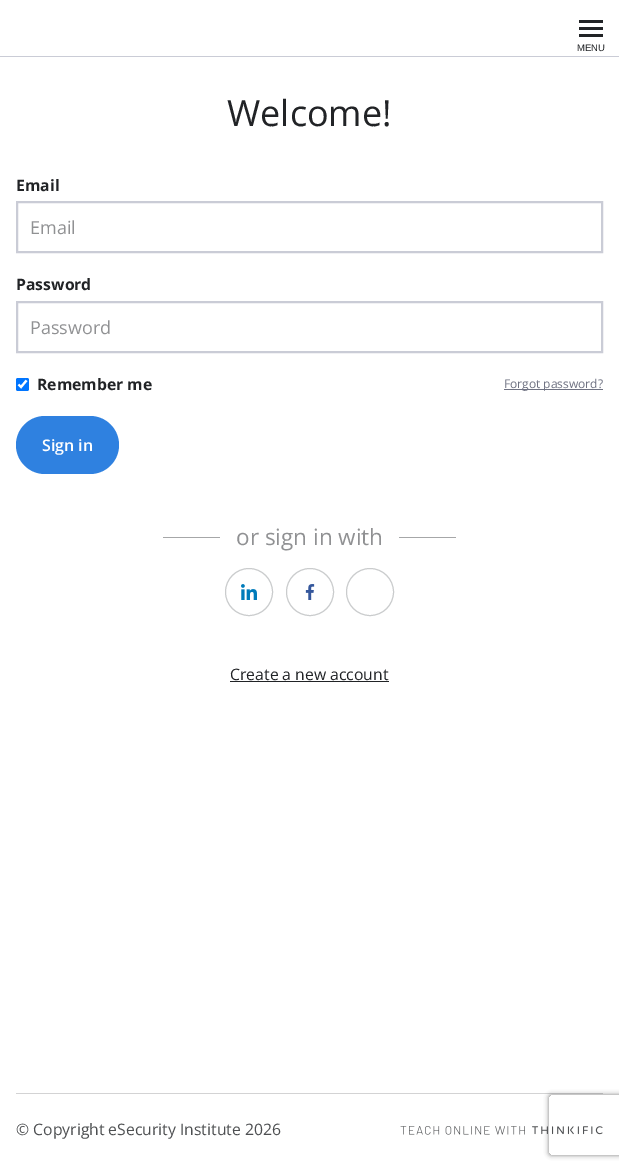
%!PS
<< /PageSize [619 1169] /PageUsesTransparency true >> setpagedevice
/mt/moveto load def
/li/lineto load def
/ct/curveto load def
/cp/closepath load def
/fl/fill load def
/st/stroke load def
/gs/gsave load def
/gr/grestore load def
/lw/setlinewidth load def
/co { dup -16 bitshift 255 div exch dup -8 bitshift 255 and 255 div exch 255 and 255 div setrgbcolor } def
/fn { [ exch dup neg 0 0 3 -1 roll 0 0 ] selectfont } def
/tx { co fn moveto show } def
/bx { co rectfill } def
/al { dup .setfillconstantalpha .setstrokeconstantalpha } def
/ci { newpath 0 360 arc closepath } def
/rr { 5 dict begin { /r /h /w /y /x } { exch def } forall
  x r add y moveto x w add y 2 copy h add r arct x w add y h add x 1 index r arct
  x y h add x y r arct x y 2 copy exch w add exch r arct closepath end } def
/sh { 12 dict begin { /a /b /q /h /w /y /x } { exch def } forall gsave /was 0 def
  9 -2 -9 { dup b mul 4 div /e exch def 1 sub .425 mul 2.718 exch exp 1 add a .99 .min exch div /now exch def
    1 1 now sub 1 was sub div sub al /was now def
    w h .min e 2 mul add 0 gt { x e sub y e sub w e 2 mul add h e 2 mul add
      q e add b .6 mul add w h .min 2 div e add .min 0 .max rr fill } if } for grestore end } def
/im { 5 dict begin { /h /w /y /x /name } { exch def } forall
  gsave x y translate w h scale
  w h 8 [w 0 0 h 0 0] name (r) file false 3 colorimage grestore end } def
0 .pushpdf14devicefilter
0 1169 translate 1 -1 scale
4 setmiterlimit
0 0 619 1169 16#FFFFFF bx
0 56 619 1 16#CACCD6 bx
579 27 24 3 16#212326 bx
579 20 24 3 16#212326 bx
579 34 24 3 16#212326 bx
16#CACCD6 co
2 lw
17 202 585 50 rectstroke
17 302 585 50 rectstroke
16#0075FF co
16 378 13 13 2 rr fl
16#FFFFFF co
2.1 lw
18.5 384.5 mt 21 387 li 26.5 380.5 li st
504 389 99 1 16#6F7282 bx
16#2F81E0 co
16 416 103 58 29 rr fl
gs
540 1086 mt 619 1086 li 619 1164 li 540 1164 li cp 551 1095 mt 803 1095 li 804 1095 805 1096 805 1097 ct 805 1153 li 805 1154 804 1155 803 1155 ct 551 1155 li 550 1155 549 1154 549 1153 ct 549 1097 li 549 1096 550 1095 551 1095 ct cp eoclip newpath
16#808080 co
549 1095 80 60 2 2.5 1 sh
gr
163 537 293 1 16#A6A7A8 bx
220 537 179 1 16#FFFFFF bx
16#CACCCD co
1 lw
249 592 23.5 ci st
(media/1.raw) 241 584 16 16 im
310 592 23.5 ci st
(media/2.raw) 305 584 10 16 im
370 592 23.5 ci st
230 681 159 1 16#212326 bx
0.2 al
16 1093 587 1 16#212326 bx
1 al
(media/3.raw) 400 1126 203 9 im
(MENU) 577 51 /LiberationSans-Regular 9.5 16#212326 tx
(Welcome!) 227 126 /OpenSans-Regular 36 16#212326 tx
(Email) 16 191 /OpenSans-Bold 15.75 16#212326 tx
(Email) 30 234 /OpenSans-Regular 18 16#909193 tx
(Password) 16 290 /OpenSans-Bold 15.75 16#212326 tx
(Password) 30 334 /OpenSans-Regular 18 16#909193 tx
(Remember me) 37 390 /OpenSans-Bold 15.75 16#212326 tx
(Forgot password?) 504 388 /OpenSans-Regular 12 16#6F7282 tx
(Sign in) 42 451 /OpenSans-SemiBold 16 16#FFFFFF tx
(or sign in with) 236 545 /OpenSans-Regular 22.5 16#909193 tx
(Create a new account) 230 680 /OpenSans-Regular 15.75 16#212326 tx
(© Copyright eSecurity Institute 2026) 16 1135 /OpenSans-Regular 15.75 16#4D4F51 tx
.poppdf14devicefilter showpage
